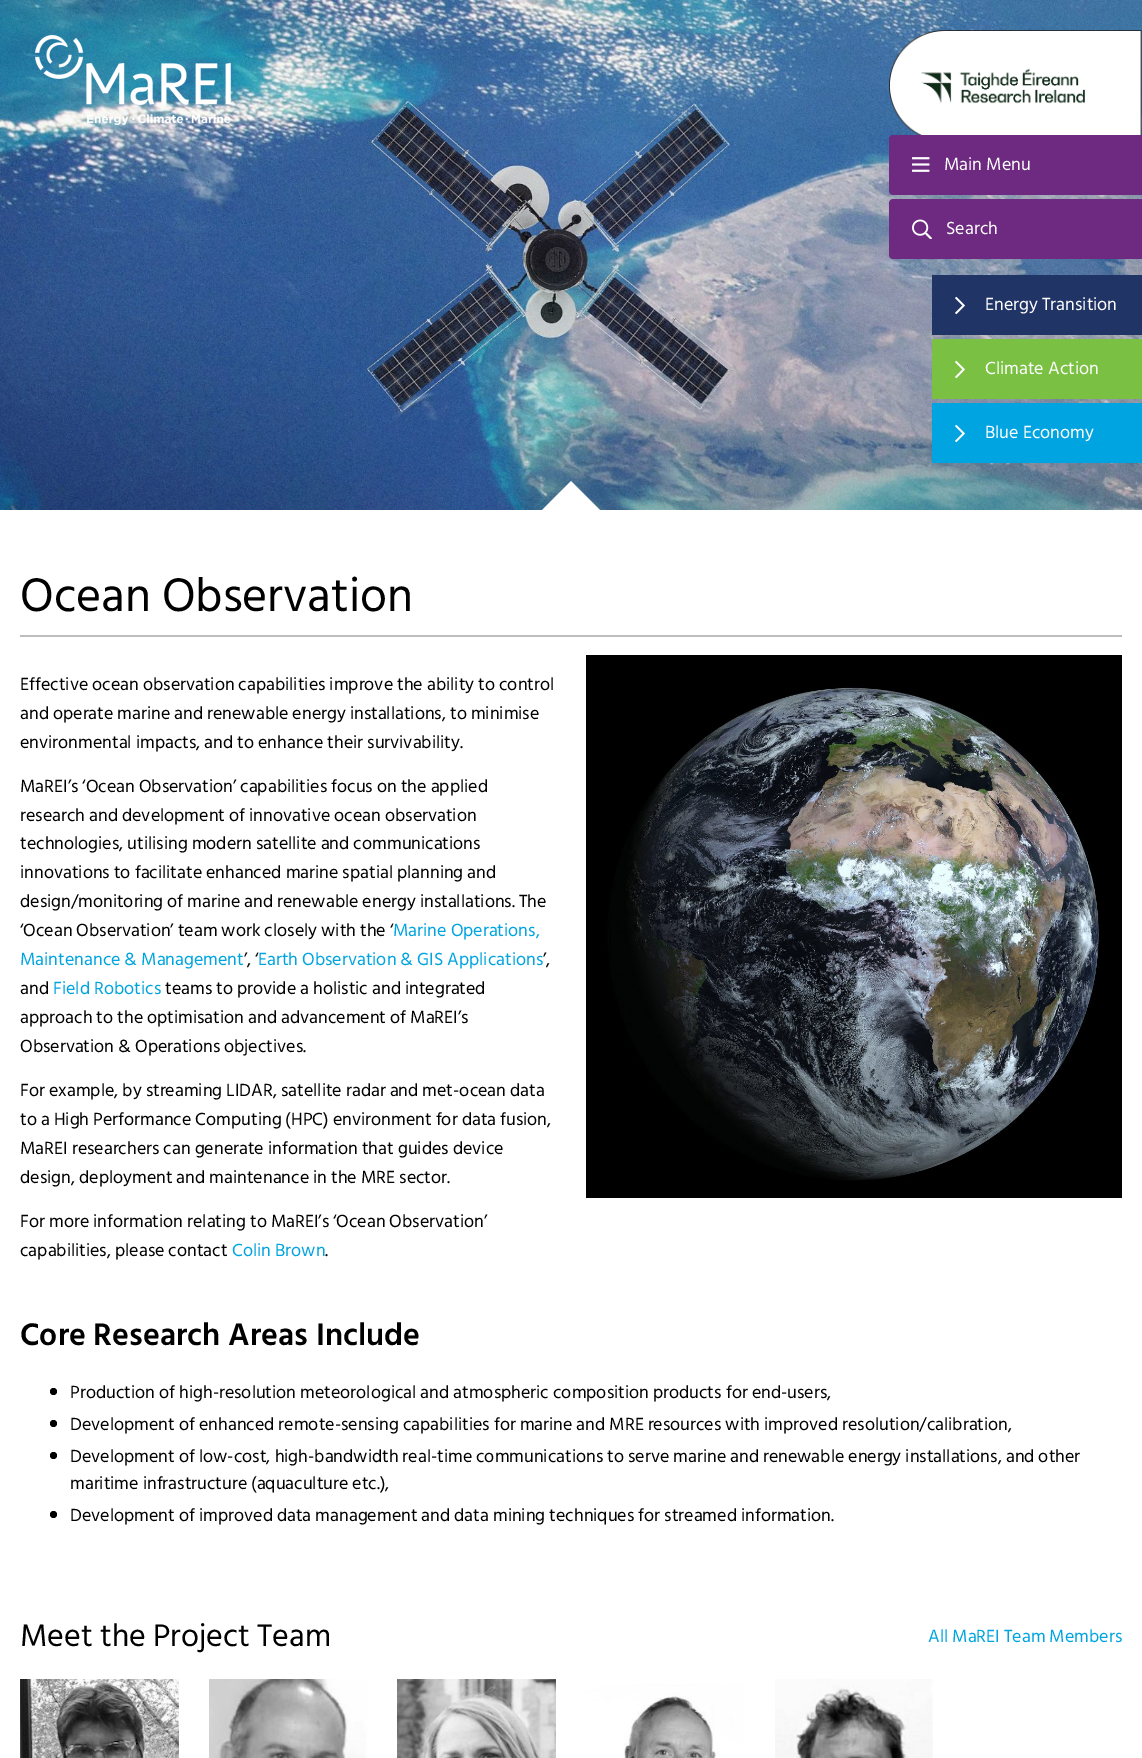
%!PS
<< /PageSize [1142 1758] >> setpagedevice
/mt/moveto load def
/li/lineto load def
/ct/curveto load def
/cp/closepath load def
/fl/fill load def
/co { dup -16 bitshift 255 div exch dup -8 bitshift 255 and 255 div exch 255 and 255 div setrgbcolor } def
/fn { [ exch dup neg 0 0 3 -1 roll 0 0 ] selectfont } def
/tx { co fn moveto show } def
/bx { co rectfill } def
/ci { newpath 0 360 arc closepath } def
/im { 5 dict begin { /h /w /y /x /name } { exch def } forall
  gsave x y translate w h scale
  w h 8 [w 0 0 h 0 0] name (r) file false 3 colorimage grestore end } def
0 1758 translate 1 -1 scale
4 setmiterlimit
0 0 1142 1758 16#FFFFFF bx
(media/8.raw) 0 0 1142 510 im
(media/1.raw) 35 35 196 90 im
(media/2.raw) 889 30 253 105 im
16#6D2A80 co
893 135 mt 1142 135 li 1142 195 li 893 195 li 891 195 889 193 889 191 ct 889 139 li 889 137 891 135 893 135 ct cp fl
(media/3.raw) 912 157 18 15 im
893 199 mt 1142 199 li 1142 259 li 893 259 li 891 259 889 257 889 255 ct 889 203 li 889 201 891 199 893 199 ct cp fl
(media/4.raw) 912 219 20 20 im
932 275 210 60 16#213466 bx
(media/5.raw) 955 296 10 19 im
932 339 210 60 16#7AC143 bx
(media/6.raw) 955 360 10 19 im
932 403 210 60 16#00A4E0 bx
(media/7.raw) 955 424 10 19 im
16#FFFFFF co
600 510 mt 542 510 li 571 481 li cp fl
20 635 1102 2 16#BDBDBD bx
(media/9.raw) 586 655 536 543 im
16#000000 co
53.5 1391.5 3.5 ci fl
53.5 1423.5 3.5 ci fl
53.5 1455.5 3.5 ci fl
53.5 1514.5 3.5 ci fl
(media/10.raw) 20 1679 159 79 im
(media/11.raw) 209 1679 158 79 im
(media/12.raw) 397 1679 159 79 im
(media/13.raw) 586 1679 159 79 im
(media/14.raw) 775 1679 158 79 im
(Main Menu) 944 170 /HindSiliguri-Regular 18 16#FFFFFF tx
(Search) 946 234 /HindSiliguri-Regular 18 16#FFFFFF tx
(Energy Transition) 985 310 /HindSiliguri-Regular 18 16#FFFFFF tx
(Climate Action) 985 374 /HindSiliguri-Regular 18 16#FFFFFF tx
(Blue Economy) 985 438 /HindSiliguri-Regular 18 16#FFFFFF tx
(Ocean Observation) 20 611 /HindSiliguri-Regular 48 16#000000 tx
(Effective ocean observation capabilities improve the ability to control) 20 690 /HindSiliguri-Regular 18 16#000000 tx
(and operate marine and renewable energy installations, to minimise) 20 719 /HindSiliguri-Regular 18 16#000000 tx
(environmental impacts, and to enhance their survivability.) 20 748 /HindSiliguri-Regular 18 16#000000 tx
(MaREI’s ‘Ocean Observation’ capabilities focus on the applied) 20 792 /HindSiliguri-Regular 18 16#000000 tx
(research and development of innovative ocean observation) 20 821 /HindSiliguri-Regular 18 16#000000 tx
(technologies, utilising modern satellite and communications) 20 849 /HindSiliguri-Regular 18 16#000000 tx
(innovations to facilitate enhanced marine spatial planning and) 20 878 /HindSiliguri-Regular 18 16#000000 tx
(design/monitoring of marine and renewable energy installations. The) 20 907 /HindSiliguri-Regular 18 16#000000 tx
(‘Ocean Observation’ team work closely with the ‘) 20 936 /HindSiliguri-Regular 18 16#000000 tx
(Marine Operations,) 393 936 /HindSiliguri-Regular 18 16#00A5E0 tx
(Maintenance & Management) 20 965 /HindSiliguri-Regular 18 16#00A5E0 tx
(’, ‘) 244 965 /HindSiliguri-Regular 18 16#000000 tx
(Earth Observation & GIS Applications) 258 965 /HindSiliguri-Regular 18 16#00A5E0 tx
(’,) 543 965 /HindSiliguri-Regular 18 16#000000 tx
(and) 20 994 /HindSiliguri-Regular 18 16#000000 tx
(Field Robotics) 53 994 /HindSiliguri-Regular 18 16#00A5E0 tx
(teams to provide a holistic and integrated) 165 994 /HindSiliguri-Regular 18 16#000000 tx
(approach to the optimisation and advancement of MaREI’s) 20 1023 /HindSiliguri-Regular 18 16#000000 tx
(Observation & Operations objectives.) 20 1052 /HindSiliguri-Regular 18 16#000000 tx
(For example, by streaming LIDAR, satellite radar and met-ocean data) 20 1096 /HindSiliguri-Regular 18 16#000000 tx
(to a High Performance Computing \(HPC\) environment for data fusion,) 20 1125 /HindSiliguri-Regular 18 16#000000 tx
(MaREI researchers can generate information that guides device) 20 1154 /HindSiliguri-Regular 18 16#000000 tx
(design, deployment and maintenance in the MRE sector.) 20 1183 /HindSiliguri-Regular 18 16#000000 tx
(For more information relating to MaREI’s ‘Ocean Observation’) 20 1227 /HindSiliguri-Regular 18 16#000000 tx
(capabilities, please contact) 20 1256 /HindSiliguri-Regular 18 16#000000 tx
(Colin Brown) 232 1256 /HindSiliguri-Regular 18 16#00A5E0 tx
(.) 325 1256 /HindSiliguri-Regular 18 16#000000 tx
(Core Research Areas Include) 20 1345 /HindSiliguri-SemiBold 32 16#000000 tx
(Production of high-resolution meteorological and atmospheric composition products for end-users,) 70 1398 /HindSiliguri-Regular 18 16#000000 tx
(Development of enhanced remote-sensing capabilities for marine and MRE resources with improved resolution/calibration,) 70 1430 /HindSiliguri-Regular 18 16#000000 tx
(Development of low-cost, high-bandwidth real-time communications to serve marine and renewable energy installations, and other) 70 1462 /HindSiliguri-Regular 18 16#000000 tx
(maritime infrastructure \(aquaculture etc.\),) 70 1489 /HindSiliguri-Regular 18 16#000000 tx
(Development of improved data management and data mining techniques for streamed information.) 70 1521 /HindSiliguri-Regular 18 16#000000 tx
(Meet the Project Team) 20 1646 /HindSiliguri-Regular 32 16#000000 tx
(All MaREI Team Members) 928 1642 /HindSiliguri-Regular 18 16#00A5E0 tx
showpage
